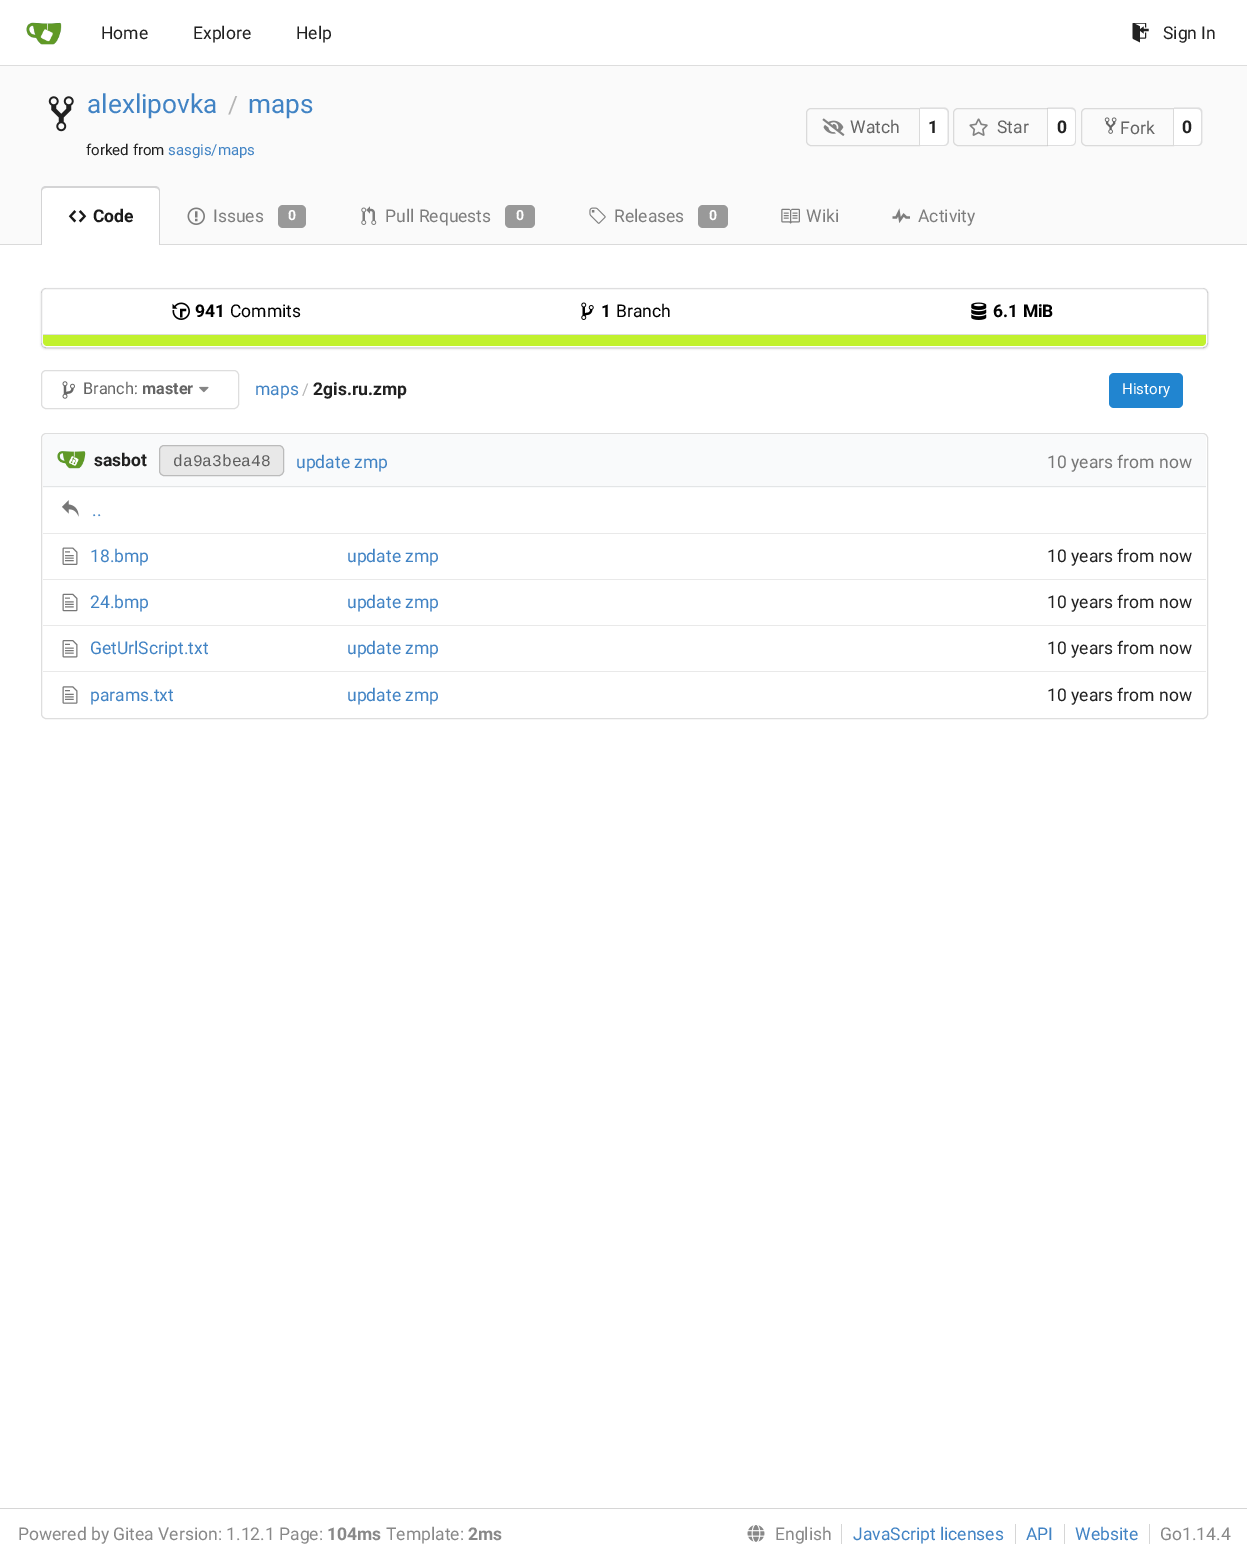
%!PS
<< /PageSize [1247 1558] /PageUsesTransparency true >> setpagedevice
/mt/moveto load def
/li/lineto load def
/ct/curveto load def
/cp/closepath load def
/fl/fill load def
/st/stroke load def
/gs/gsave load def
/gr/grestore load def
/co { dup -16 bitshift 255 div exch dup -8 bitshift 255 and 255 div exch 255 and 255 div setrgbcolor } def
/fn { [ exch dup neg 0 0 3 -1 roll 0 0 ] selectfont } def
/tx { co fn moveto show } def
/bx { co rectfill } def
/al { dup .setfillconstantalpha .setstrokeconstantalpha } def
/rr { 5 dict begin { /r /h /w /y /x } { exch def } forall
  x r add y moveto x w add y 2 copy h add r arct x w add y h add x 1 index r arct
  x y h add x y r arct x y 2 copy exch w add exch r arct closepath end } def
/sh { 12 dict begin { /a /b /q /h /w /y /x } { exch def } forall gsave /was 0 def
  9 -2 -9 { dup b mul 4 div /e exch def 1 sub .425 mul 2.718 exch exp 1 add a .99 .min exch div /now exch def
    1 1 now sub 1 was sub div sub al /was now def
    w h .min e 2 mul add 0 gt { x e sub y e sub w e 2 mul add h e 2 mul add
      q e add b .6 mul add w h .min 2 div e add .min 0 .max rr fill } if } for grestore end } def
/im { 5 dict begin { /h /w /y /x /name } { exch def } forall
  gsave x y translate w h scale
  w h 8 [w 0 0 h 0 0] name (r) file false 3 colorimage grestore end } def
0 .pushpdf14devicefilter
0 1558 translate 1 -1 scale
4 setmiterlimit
0 0 1247 1558 16#FFFFFF bx
0 65 1247 1 16#DDDDDD bx
(media/1.raw) 26 22 36 23 im
(media/2.raw) 1132 23 17 20 im
0 66 1247 178 16#FAFAFA bx
(media/3.raw) 48 96 26 36 im
16#DADADA co
811 108.5 mt 919.5 108.5 li 919.5 145.5 li 811 145.5 li 808.5 145.5 806.5 143.5 806.5 141 ct 806.5 113 li 806.5 110.5 808.5 108.5 811 108.5 ct cp st
(media/4.raw) 822 118 23 18 im
16#FFFFFF co
920 108 mt 944 108 li 947 108 949 110 949 113 ct 949 141 li 949 144 947 146 944 146 ct 920 146 li cp fl
0.15 al
16#222426 co
920 107.5 mt 944 107.5 li 946.5 107.5 949 109.5 949 112.5 ct 949 141 li 949 144 946.5 146 944 146 ct 920 146 li cp 920 109 mt 944 109 li 946 109 947.5 110.5 947.5 112.5 ct 947.5 141 li 947.5 143.5 946 145 944 145 ct 920 145 li cp eofill
1 al
16#DADADA co
958 108.5 mt 1047.5 108.5 li 1047.5 145.5 li 958 145.5 li 955.5 145.5 953.5 143.5 953.5 141 ct 953.5 113 li 953.5 110.5 955.5 108.5 958 108.5 ct cp st
(media/5.raw) 969 118 19 18 im
16#FFFFFF co
1048 108 mt 1071 108 li 1074 108 1076 110 1076 113 ct 1076 141 li 1076 144 1074 146 1071 146 ct 1048 146 li cp fl
0.15 al
16#222426 co
1047.5 107.5 mt 1071 107.5 li 1074 107.5 1076 109.5 1076 112.5 ct 1076 141 li 1076 144 1074 146 1071 146 ct 1047.5 146 li cp 1047.5 109 mt 1071 109 li 1073.5 109 1075 110.5 1075 112.5 ct 1075 141 li 1075 143.5 1073.5 145 1071 145 ct 1047.5 145 li cp eofill
1 al
16#DADADA co
1086 108.5 mt 1173.5 108.5 li 1173.5 145.5 li 1086 145.5 li 1083.5 145.5 1081.5 143.5 1081.5 141 ct 1081.5 113 li 1081.5 110.5 1083.5 108.5 1086 108.5 ct cp st
(media/6.raw) 1104 117 13 17 im
16#FFFFFF co
1174 108 mt 1198 108 li 1201 108 1203 110 1203 113 ct 1203 141 li 1203 144 1201 146 1198 146 ct 1174 146 li cp fl
0.15 al
16#222426 co
1174 107.5 mt 1197.5 107.5 li 1200.5 107.5 1202.5 109.5 1202.5 112.5 ct 1202.5 141 li 1202.5 144 1200.5 146 1197.5 146 ct 1174 146 li cp 1174 109 mt 1197.5 109 li 1199.5 109 1201 110.5 1201 112.5 ct 1201 141 li 1201 143.5 1199.5 145 1197.5 145 ct 1174 145 li cp eofill
1 al
0 244 1247 1 16#DADADA bx
16#FFFFFF co
46 186 mt 155 186 li 158 186 160 188 160 191 ct 160 245 li 41 245 li 41 191 li 41 188 43 186 46 186 ct cp fl
16#D4D4D5 co
46 186 mt 155 186 li 158 186 160 188 160 191 ct 160 245 li 41 245 li 41 191 li 41 188 43 186 46 186 ct cp 46 188 mt 155 188 li 157 188 159 189 159 191 ct 159 245 li 42 245 li 42 191 li 42 189 44 188 46 188 ct cp eofill
(media/7.raw) 68 210 19 13 im
(media/8.raw) 187 207 18 18 im
16#999999 co
278 205 28 23 5 rr fl
(media/9.raw) 361 206 16 19 im
505 205 30 23 5 rr fl
(media/10.raw) 589 207 17 17 im
698 205 30 23 5 rr fl
(media/11.raw) 781 208 19 16 im
(media/12.raw) 892 208 18 15 im
gs
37 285 mt 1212 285 li 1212 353 li 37 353 li cp 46 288 mt 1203 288 li 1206 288 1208 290 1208 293 ct 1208 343 li 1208 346 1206 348 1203 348 ct 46 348 li 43 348 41 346 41 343 ct 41 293 li 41 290 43 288 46 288 ct cp eoclip newpath
16#222426 co
41 289 1167 60 5 1 .15 sh
gr
0.15 al
16#222426 co
41.5 288.5 1166 59 4.5 rr st
1 al
(media/13.raw) 172 302 18 18 im
(media/14.raw) 581 302 13 18 im
(media/15.raw) 971 302 16 18 im
43 334 1163 1 16#DEDEDE bx
16#C1F12E co
43 335 mt 1206 335 li 1206 342 li 1206 344 1204 346 1202 346 ct 47 346 li 45 346 43 344 43 342 ct cp fl
16#DEDEDE co
41.5 370.5 197 38 4.5 rr st
(media/16.raw) 62 381 13 18 im
(media/17.raw) 199 386 10 7 im
16#2185D0 co
1109 373 74 35 5 rr fl
16#DEDEDE co
41.5 433.5 1166 285 4.5 rr st
16#F9FAFB co
48 434 mt 988 434 li 988 488 li 43 488 li 43 439 li 43 436 45 434 48 434 ct cp fl
43 486 945 1 16#E3E5E6 bx
(media/18.raw) 57 451 29 18 im
16#E8E8E8 co
159.5 445.5 124 30 4.5 rr gs fl gr
16#BBBBBB co
st
16#F9FAFB co
988 434 mt 1201 434 li 1204 434 1206 436 1206 439 ct 1206 488 li 988 488 li cp fl
988 486 218 1 16#E3E5E6 bx
(media/19.raw) 62 500 17 17 im
43 533 1163 1 16#E9E9E9 bx
(media/20.raw) 62 547 16 18 im
43 579 1163 1 16#E9E9E9 bx
(media/21.raw) 62 593 16 19 im
43 625 1163 1 16#E9E9E9 bx
(media/22.raw) 62 640 16 18 im
43 671 1163 1 16#E9E9E9 bx
(media/23.raw) 62 686 16 18 im
0 1508 1247 1 16#D6D6D6 bx
(media/24.raw) 747 1525 18 17 im
841 1524 1 20 16#D6D6D6 bx
1015 1524 1 20 16#D6D6D6 bx
1064 1524 1 20 16#D6D6D6 bx
1149 1524 1 20 16#D6D6D6 bx
(Home) 101 39 /Roboto-Regular 17.5 16#212121 tx
(Explore) 193 39 /Roboto-Regular 17.5 16#212121 tx
(Help) 296 39 /Roboto-Regular 17.5 16#212121 tx
(Sign In) 1163 39 /Roboto-Regular 17.5 16#212121 tx
(alexlipovka) 87 113 /Roboto-Regular 26.25 16#4183C4 tx
(/) 228 113 /Roboto-Regular 24 16#B4B4B4 tx
(maps) 248 113 /Roboto-Regular 26.25 16#4183C4 tx
(forked from) 86 155 /Roboto-Regular 15 16#212121 tx
(sasgis/maps) 168 155 /Roboto-Regular 15 16#4183C4 tx
(Watch) 850 133 /Roboto-Regular 17.5 16#646464 tx
(1) 928 133 /Roboto-Bold 17.5 16#212121 tx
(Star) 997 133 /Roboto-Regular 17.5 16#646464 tx
(0) 1057 133 /Roboto-Bold 17.5 16#212121 tx
(Fork) 1120 134 /Roboto-Regular 17.5 16#646464 tx
(0) 1182 133 /Roboto-Bold 17.5 16#212121 tx
(Code) 93 222 /Roboto-Bold 17.5 16#1A1A1A tx
(Issues) 213 222 /Roboto-Regular 17.5 16#7D7D7D tx
(0) 288 220 /Roboto-Bold 14 16#FFFFFF tx
(Pull Requests) 385 222 /Roboto-Regular 17.5 16#7D7D7D tx
(0) 516 220 /Roboto-Bold 14 16#FFFFFF tx
(Releases) 614 222 /Roboto-Regular 17.5 16#7D7D7D tx
(0) 709 220 /Roboto-Bold 14 16#FFFFFF tx
(Wiki) 806 222 /Roboto-Regular 17.5 16#7D7D7D tx
(Activity) 918 222 /Roboto-Regular 17.5 16#7D7D7D tx
(941) 195 317 /Roboto-Bold 17.5 16#000000 tx
(Commits) 230 317 /Roboto-Regular 17.5 16#000000 tx
(1) 601 317 /Roboto-Bold 17.5 16#000000 tx
(Branch) 616 317 /Roboto-Regular 17.5 16#000000 tx
(6.1 MiB) 993 317 /Roboto-Bold 17.5 16#000000 tx
(Branch:) 83 394 /Roboto-Regular 16.25 16#646464 tx
(master) 142 394 /Roboto-Bold 16.25 16#646464 tx
(maps) 255 395 /Roboto-Regular 17.5 16#4183C4 tx
(/) 302 395 /Roboto-Regular 16.25 16#B4B4B4 tx
(2gis.ru.zmp) 313 395 /Roboto-Bold 17.5 16#212121 tx
(History) 1122 394 /Roboto-Regular 15 16#FFFFFF tx
(sasbot) 94 466 /Roboto-Bold 17.5 16#212121 tx
(da9a3bea48) 173 466 /LiberationMono-Regular 16.25 16#5D5D5D tx
(update zmp) 296 468 /Roboto-Regular 17.5 16#4183C4 tx
(10 years from now) 1047 468 /Roboto-Regular 17.5 16#767676 tx
(..) 92 516 /Roboto-Regular 17.5 16#4183C4 tx
(18.bmp) 90 562 /Roboto-Regular 17.5 16#4183C4 tx
(update zmp) 347 562 /Roboto-Regular 17.5 16#4183C4 tx
(10 years from now) 1047 562 /Roboto-Regular 17.5 16#212121 tx
(24.bmp) 90 608 /Roboto-Regular 17.5 16#4183C4 tx
(update zmp) 347 608 /Roboto-Regular 17.5 16#4183C4 tx
(10 years from now) 1047 608 /Roboto-Regular 17.5 16#212121 tx
(GetUrlScript.txt) 90 654 /Roboto-Regular 17.5 16#4183C4 tx
(update zmp) 347 654 /Roboto-Regular 17.5 16#4183C4 tx
(10 years from now) 1047 654 /Roboto-Regular 17.5 16#212121 tx
(params.txt) 90 701 /Roboto-Regular 17.5 16#4183C4 tx
(update zmp) 347 701 /Roboto-Regular 17.5 16#4183C4 tx
(10 years from now) 1047 701 /Roboto-Regular 17.5 16#212121 tx
(Powered by Gitea Version: 1.12.1 Page:) 18 1540 /Roboto-Regular 17.5 16#888888 tx
(104ms) 327 1540 /Roboto-Bold 17.5 16#888888 tx
(Template:) 386 1540 /Roboto-Regular 17.5 16#888888 tx
(2ms) 468 1540 /Roboto-Bold 17.5 16#888888 tx
(English) 775 1540 /Roboto-Regular 17.5 16#888888 tx
(JavaScript licenses) 853 1540 /Roboto-Regular 17.5 16#4183C4 tx
(API) 1026 1540 /Roboto-Regular 17.5 16#4183C4 tx
(Website) 1075 1540 /Roboto-Regular 17.5 16#4183C4 tx
(Go1.14.4) 1160 1540 /Roboto-Regular 17.5 16#888888 tx
.poppdf14devicefilter showpage
